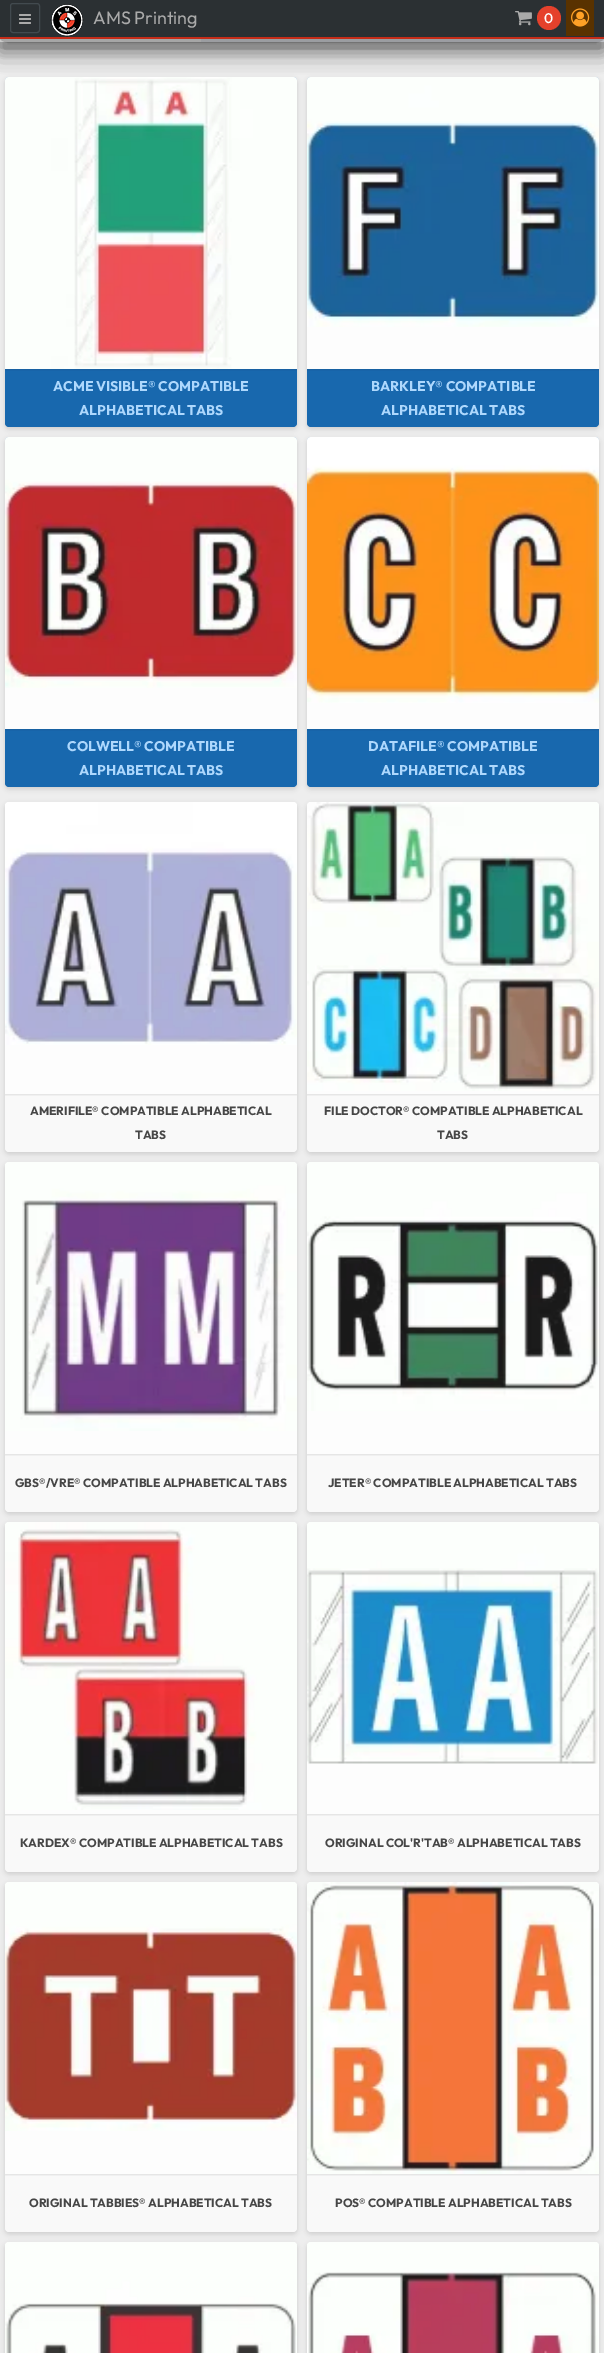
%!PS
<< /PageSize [604 2353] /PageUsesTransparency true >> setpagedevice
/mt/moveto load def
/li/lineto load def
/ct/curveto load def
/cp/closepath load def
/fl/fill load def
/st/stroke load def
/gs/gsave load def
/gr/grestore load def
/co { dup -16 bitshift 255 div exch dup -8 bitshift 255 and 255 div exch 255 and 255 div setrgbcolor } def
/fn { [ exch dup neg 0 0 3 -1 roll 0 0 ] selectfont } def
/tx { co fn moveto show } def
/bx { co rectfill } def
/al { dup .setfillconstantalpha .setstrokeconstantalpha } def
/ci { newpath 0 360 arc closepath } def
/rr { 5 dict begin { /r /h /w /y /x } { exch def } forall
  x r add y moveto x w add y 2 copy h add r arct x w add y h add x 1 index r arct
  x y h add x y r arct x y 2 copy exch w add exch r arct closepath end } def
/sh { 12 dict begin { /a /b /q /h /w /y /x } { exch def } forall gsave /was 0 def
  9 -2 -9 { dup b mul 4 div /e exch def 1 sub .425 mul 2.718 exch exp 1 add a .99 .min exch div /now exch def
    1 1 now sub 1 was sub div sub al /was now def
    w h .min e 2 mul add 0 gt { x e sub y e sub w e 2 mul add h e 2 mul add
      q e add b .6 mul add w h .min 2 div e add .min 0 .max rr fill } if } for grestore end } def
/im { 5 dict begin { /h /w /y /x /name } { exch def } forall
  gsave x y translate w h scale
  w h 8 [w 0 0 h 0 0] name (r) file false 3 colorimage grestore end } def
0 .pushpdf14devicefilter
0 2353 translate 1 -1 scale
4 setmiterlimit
0 0 604 2353 16#EEEEEE bx
16#000000 co
0 -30 604 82 0 10 .35 sh
(media/5.raw) 201 39 403 3 im
0 39 201 3 16#FFFFFF bx
16#181818 co
5 79 292 350 4 2.5 .15 sh
16#1868AE co
5 77 292 350 4 rr fl
gs
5 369 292 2 rectclip
16#181818 co
5 77 292 292 0 1.5 .2 sh
gr
(media/6.raw) 5 77 292 292 im
16#181818 co
307 79 292 350 4 2.5 .15 sh
16#1868AE co
307 77 292 350 4 rr fl
gs
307 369 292 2 rectclip
16#181818 co
307 77 292 292 0 1.5 .2 sh
gr
16#FDFDFD co
311 77 mt 595 77 li 597 77 599 79 599 81 ct 599 369 li 307 369 li 307 81 li 307 79 309 77 311 77 ct cp fl
(media/7.raw) 307 77 292 250 im
16#000000 co
0 0 604 39 0 15 .7 sh
0 0 604 37 16#2B3033 bx
0 37 604 2 16#C62C18 bx
16#424A4F co
10.5 3.5 29 29 2.5 rr st
(media/1.raw) 19 14 12 10 im
(media/2.raw) 50 4 34 33 im
(media/3.raw) 515 11 17 15 im
16#E5412C co
549 18 12 ci fl
566 0 28 36 16#593200 bx
(media/4.raw) 571 8 19 19 im
16#181818 co
5 439 292 350 4 2.5 .15 sh
16#1868AE co
5 437 292 350 4 rr fl
gs
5 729 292 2 rectclip
16#181818 co
5 437 292 292 0 1.5 .2 sh
gr
16#FDFDFD co
9 437 mt 293 437 li 295 437 297 439 297 441 ct 297 729 li 5 729 li 5 441 li 5 439 7 437 9 437 ct cp fl
(media/8.raw) 5 437 292 251 im
16#181818 co
307 439 292 350 4 2.5 .15 sh
16#1868AE co
307 437 292 350 4 rr fl
gs
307 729 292 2 rectclip
16#181818 co
307 437 292 292 0 1.5 .2 sh
gr
16#FDFDFD co
311 437 mt 595 437 li 597 437 599 439 599 441 ct 599 729 li 307 729 li 307 441 li 307 439 309 437 311 437 ct cp fl
(media/9.raw) 307 437 292 266 im
16#181818 co
5 804 292 350 4 2.5 .15 sh
16#F9F9F9 co
5 802 292 350 4 rr fl
gs
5 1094 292 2 rectclip
16#181818 co
5 802 292 292 0 1.5 .2 sh
gr
16#FDFDFD co
9 802 mt 293 802 li 295 802 297 804 297 806 ct 297 1094 li 5 1094 li 5 806 li 5 804 7 802 9 802 ct cp fl
(media/10.raw) 5 802 292 243 im
16#181818 co
307 804 292 350 4 2.5 .15 sh
16#F9F9F9 co
307 802 292 350 4 rr fl
gs
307 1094 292 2 rectclip
16#181818 co
307 802 292 292 0 1.5 .2 sh
gr
16#FDFDFD co
311 802 mt 595 802 li 597 802 599 804 599 806 ct 599 1094 li 307 1094 li 307 806 li 307 804 309 802 311 802 ct cp fl
(media/11.raw) 307 802 292 289 im
16#181818 co
5 1164 292 350 4 2.5 .15 sh
16#F9F9F9 co
5 1162 292 350 4 rr fl
gs
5 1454 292 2 rectclip
16#181818 co
5 1162 292 292 0 1.5 .2 sh
gr
16#FDFDFD co
9 1162 mt 293 1162 li 295 1162 297 1164 297 1166 ct 297 1454 li 5 1454 li 5 1166 li 5 1164 7 1162 9 1162 ct cp fl
(media/12.raw) 5 1162 292 269 im
16#181818 co
307 1164 292 350 4 2.5 .15 sh
16#F9F9F9 co
307 1162 292 350 4 rr fl
gs
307 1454 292 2 rectclip
16#181818 co
307 1162 292 292 0 1.5 .2 sh
gr
16#FDFDFD co
311 1162 mt 595 1162 li 597 1162 599 1164 599 1166 ct 599 1454 li 307 1454 li 307 1166 li 307 1164 309 1162 311 1162 ct cp fl
(media/13.raw) 307 1162 292 249 im
16#181818 co
5 1524 292 350 4 2.5 .15 sh
16#F9F9F9 co
5 1522 292 350 4 rr fl
gs
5 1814 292 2 rectclip
16#181818 co
5 1522 292 292 0 1.5 .2 sh
gr
16#FDFDFD co
9 1522 mt 293 1522 li 295 1522 297 1524 297 1526 ct 297 1814 li 5 1814 li 5 1526 li 5 1524 7 1522 9 1522 ct cp fl
(media/14.raw) 5 1522 292 288 im
16#181818 co
307 1524 292 350 4 2.5 .15 sh
16#F9F9F9 co
307 1522 292 350 4 rr fl
gs
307 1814 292 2 rectclip
16#181818 co
307 1522 292 292 0 1.5 .2 sh
gr
16#FDFDFD co
311 1522 mt 595 1522 li 597 1522 599 1524 599 1526 ct 599 1814 li 307 1814 li 307 1526 li 307 1524 309 1522 311 1522 ct cp fl
(media/15.raw) 307 1522 292 242 im
16#181818 co
5 1884 292 350 4 2.5 .15 sh
16#F9F9F9 co
5 1882 292 350 4 rr fl
gs
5 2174 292 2 rectclip
16#181818 co
5 1882 292 292 0 1.5 .2 sh
gr
16#FDFDFD co
9 1882 mt 293 1882 li 295 1882 297 1884 297 1886 ct 297 2174 li 5 2174 li 5 1886 li 5 1884 7 1882 9 1882 ct cp fl
(media/16.raw) 5 1882 292 249 im
16#181818 co
307 1884 292 350 4 2.5 .15 sh
16#F9F9F9 co
307 1882 292 350 4 rr fl
gs
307 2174 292 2 rectclip
16#181818 co
307 1882 292 292 0 1.5 .2 sh
gr
(media/17.raw) 307 1882 292 292 im
gs
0 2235 mt 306 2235 li 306 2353 li 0 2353 li cp 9 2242 mt 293 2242 li 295 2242 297 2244 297 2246 ct 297 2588 li 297 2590 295 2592 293 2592 ct 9 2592 li 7 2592 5 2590 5 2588 ct 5 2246 li 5 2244 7 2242 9 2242 ct cp eoclip newpath
16#181818 co
5 2244 292 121 4 2.5 .15 sh
gr
(media/18.raw) 5 2242 292 111 im
gs
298 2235 mt 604 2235 li 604 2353 li 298 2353 li cp 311 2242 mt 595 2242 li 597 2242 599 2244 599 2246 ct 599 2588 li 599 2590 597 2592 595 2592 ct 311 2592 li 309 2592 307 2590 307 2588 ct 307 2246 li 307 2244 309 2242 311 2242 ct cp eoclip newpath
16#181818 co
307 2244 292 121 4 2.5 .15 sh
gr
(media/19.raw) 307 2242 292 111 im
(AMS Printing) 93 24 /Outfit-Regular 18 16#AAAAAA tx
(0) 544 23 /Outfit-Medium 14 16#FFFFFF tx
(ACME VISIBLE® COMPATIBLE) 53 391 /Outfit-Bold 14 16#AED8FD tx
(ALPHABETICAL TABS) 79 415 /Outfit-Bold 14 16#AED8FD tx
(BARKLEY® COMPATIBLE) 371 391 /Outfit-Bold 14 16#AED8FD tx
(ALPHABETICAL TABS) 381 415 /Outfit-Bold 14 16#AED8FD tx
(COLWELL® COMPATIBLE) 67 751 /Outfit-Bold 14 16#AED8FD tx
(ALPHABETICAL TABS) 79 775 /Outfit-Bold 14 16#AED8FD tx
(DATAFILE® COMPATIBLE) 368 751 /Outfit-Bold 14 16#AED8FD tx
(ALPHABETICAL TABS) 381 775 /Outfit-Bold 14 16#AED8FD tx
(AMERIFILE® COMPATIBLE ALPHABETICAL) 30 1115 /Outfit-Bold 12 16#464646 tx
(TABS) 135 1139 /Outfit-Bold 12 16#464646 tx
(FILE DOCTOR® COMPATIBLE ALPHABETICAL) 324 1115 /Outfit-Bold 12 16#464646 tx
(TABS) 437 1139 /Outfit-Bold 12 16#464646 tx
(GBS®/VRE® COMPATIBLE ALPHABETICAL TABS) 15 1487 /Outfit-Bold 12 16#464646 tx
(JETER® COMPATIBLE ALPHABETICAL TABS) 328 1487 /Outfit-Bold 12 16#464646 tx
(KARDEX® COMPATIBLE ALPHABETICAL TABS) 20 1847 /Outfit-Bold 12 16#464646 tx
(ORIGINAL COL'R'TAB® ALPHABETICAL TABS) 325 1847 /Outfit-Bold 12 16#464646 tx
(ORIGINAL TABBIES® ALPHABETICAL TABS) 29 2207 /Outfit-Bold 12 16#464646 tx
(POS® COMPATIBLE ALPHABETICAL TABS) 335 2207 /Outfit-Bold 12 16#464646 tx
.poppdf14devicefilter showpage
